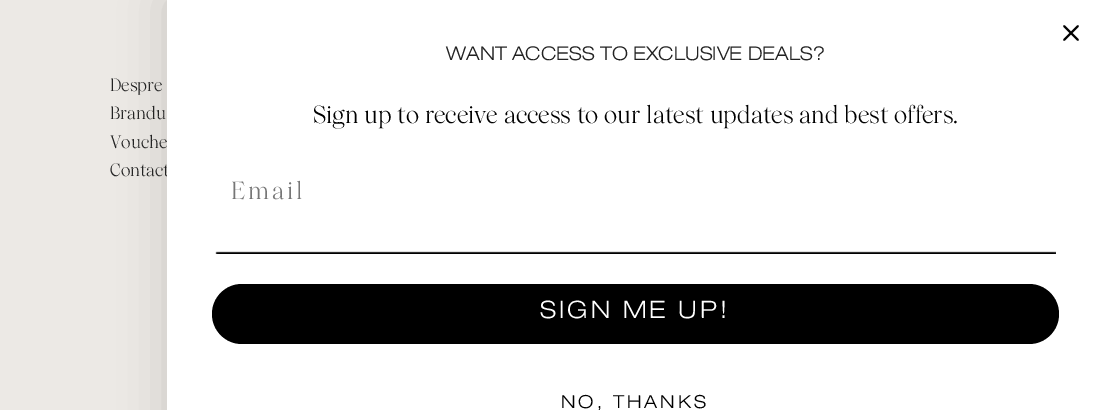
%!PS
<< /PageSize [1103 410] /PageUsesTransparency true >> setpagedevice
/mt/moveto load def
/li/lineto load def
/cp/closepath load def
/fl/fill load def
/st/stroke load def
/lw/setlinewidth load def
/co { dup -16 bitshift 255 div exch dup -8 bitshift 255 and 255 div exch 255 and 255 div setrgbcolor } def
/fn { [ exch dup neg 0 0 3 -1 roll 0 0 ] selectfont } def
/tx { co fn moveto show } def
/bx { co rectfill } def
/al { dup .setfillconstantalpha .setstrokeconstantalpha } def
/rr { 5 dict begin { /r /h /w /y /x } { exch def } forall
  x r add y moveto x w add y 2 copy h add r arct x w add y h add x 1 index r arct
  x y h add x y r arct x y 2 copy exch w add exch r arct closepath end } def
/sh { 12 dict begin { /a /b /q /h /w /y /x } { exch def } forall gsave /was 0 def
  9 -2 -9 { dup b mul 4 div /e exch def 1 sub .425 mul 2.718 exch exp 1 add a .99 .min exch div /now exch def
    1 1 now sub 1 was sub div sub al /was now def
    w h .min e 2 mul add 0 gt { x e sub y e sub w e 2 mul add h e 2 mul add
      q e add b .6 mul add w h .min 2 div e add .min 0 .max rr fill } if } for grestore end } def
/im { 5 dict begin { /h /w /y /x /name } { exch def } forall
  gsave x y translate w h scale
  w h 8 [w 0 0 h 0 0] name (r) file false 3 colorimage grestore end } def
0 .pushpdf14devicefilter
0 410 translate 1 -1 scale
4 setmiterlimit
0 0 1103 410 16#ECE9E5 bx
16#000000 co
167 0 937 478 0 22.5 .15 sh
(Despre) 110 91 /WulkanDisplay-Regular 17.5 16#222222 tx
(Brandu) 110 119 /WulkanDisplay-Regular 17.5 16#222222 tx
(Vouche) 110 148 /WulkanDisplay-Regular 17.5 16#222222 tx
(Contact) 110 176 /WulkanDisplay-Regular 17.5 16#222222 tx
167 0 936 410 16#FFFFFF bx
16#000000 co
1.8 lw
1 setlinecap
1 setlinejoin
1064 26 mt 1078 40 li 1064 40 mt 1078 26 li cp st
(WANT ACCESS TO EXCLUSIVE DEALS?) 446 60 /HelveticaNeue-Light 18.9 16#222222 tx
(Sign up to receive access to our latest updates and best offers.) 313 123 /WulkanDisplay-Regular 24 16#000000 tx
16#767676 co
231 199 mt 3 0 (Email) ashow
(media/1.raw) 215 251 841 3 im
16#000000 co
212 284 847 60 30 rr fl
/HelveticaNeue-Light 24 fn
16#FFFFFF co
540 318 mt 3 0 (SIGN ME UP!) ashow
/HelveticaNeue-Light 18 fn
16#000000 co
561 408 mt 3 0 (NO, THANKS) ashow
.poppdf14devicefilter showpage
